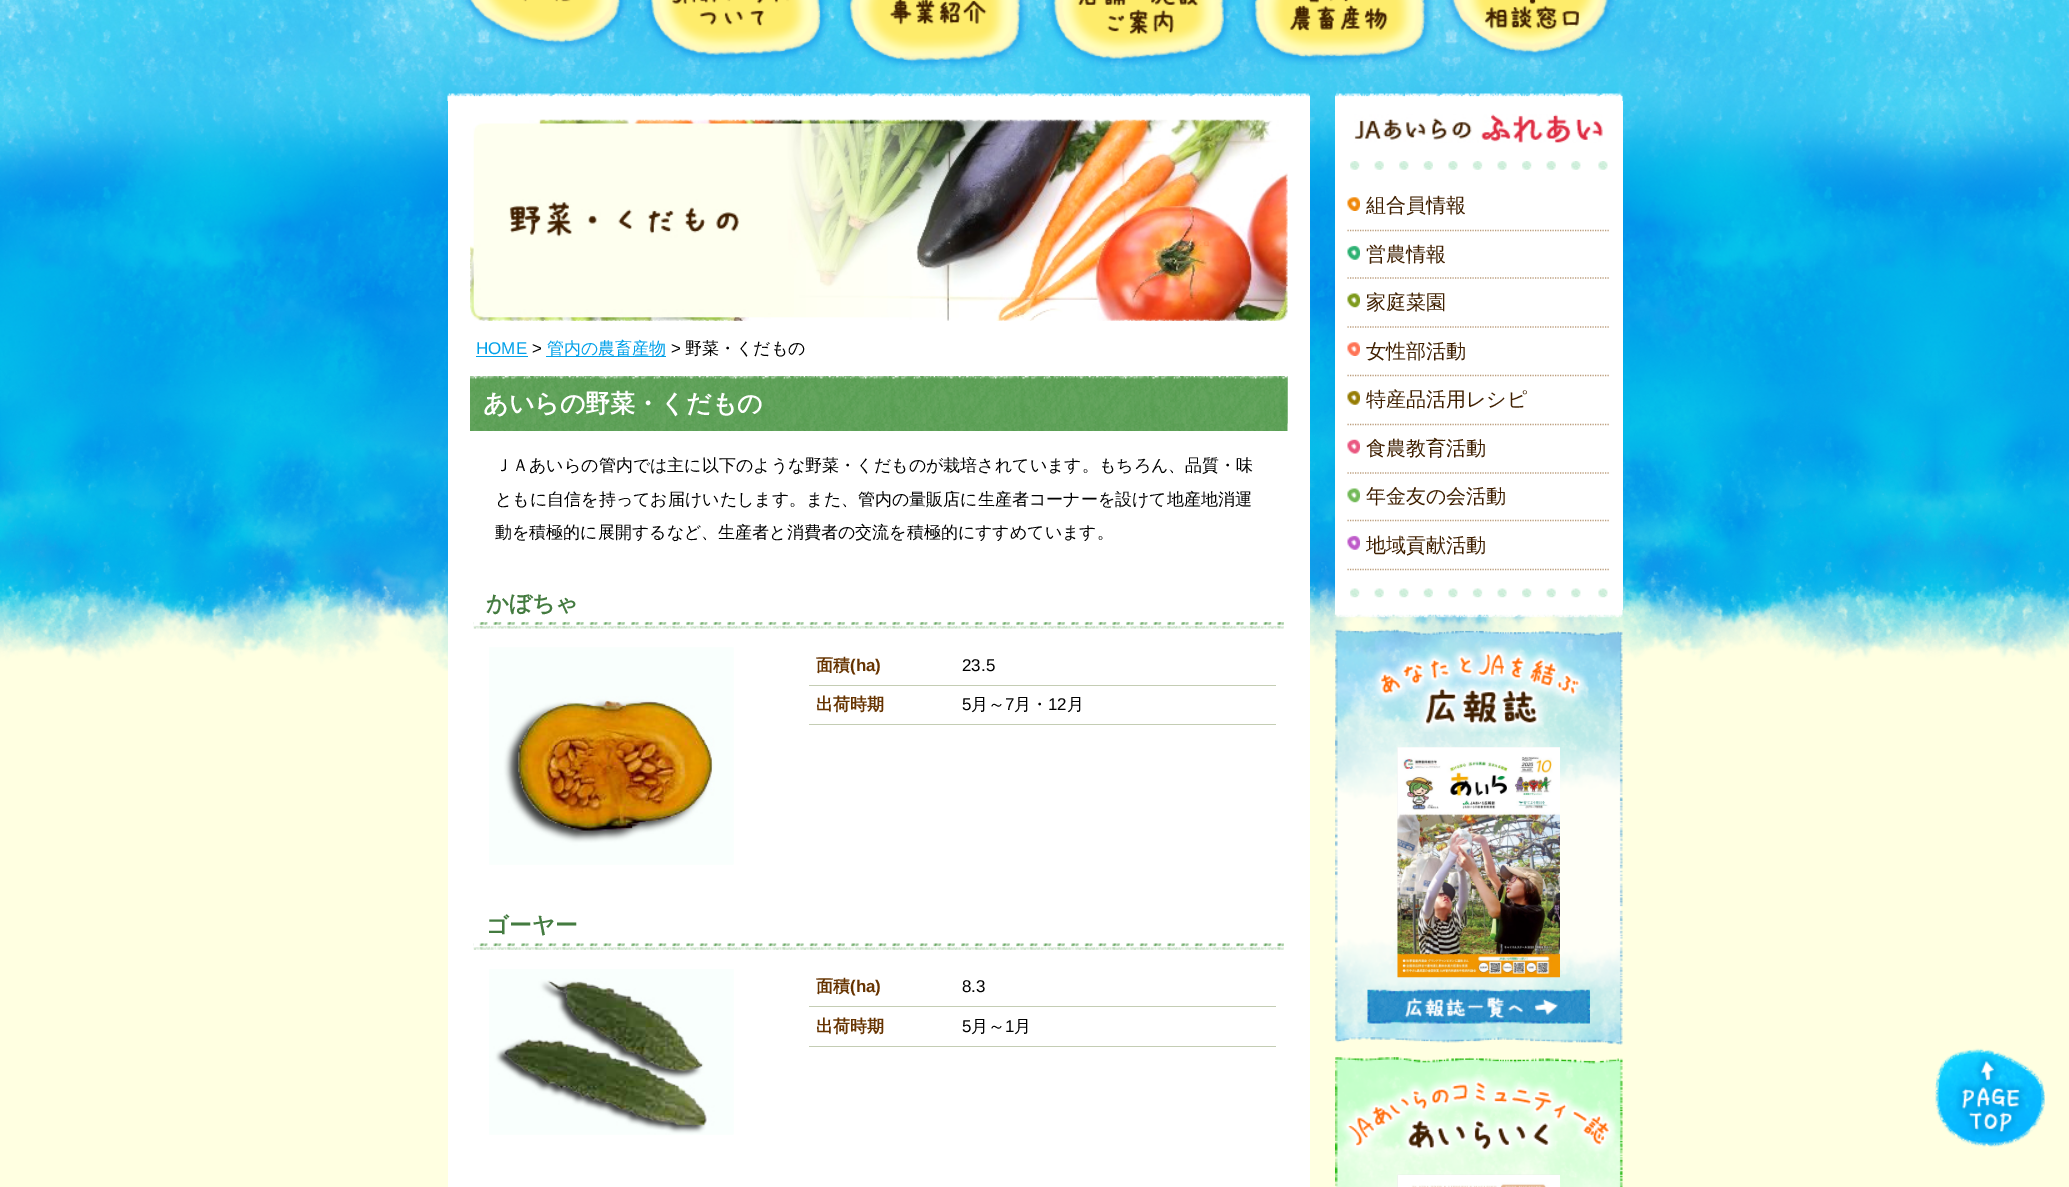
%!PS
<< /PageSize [2069 1187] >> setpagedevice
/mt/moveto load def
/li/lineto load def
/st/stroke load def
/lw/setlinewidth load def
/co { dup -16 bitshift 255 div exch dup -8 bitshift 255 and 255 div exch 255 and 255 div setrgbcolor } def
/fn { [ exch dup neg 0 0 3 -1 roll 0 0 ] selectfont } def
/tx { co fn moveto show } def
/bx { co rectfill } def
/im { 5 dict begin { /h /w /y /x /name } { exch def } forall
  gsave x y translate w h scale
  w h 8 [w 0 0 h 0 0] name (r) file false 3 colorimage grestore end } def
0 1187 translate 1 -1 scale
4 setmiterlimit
0 0 2069 1187 16#FFFFE1 bx
(media/1.raw) 0 0 2069 671 im
(media/2.raw) 461 0 166 50 im
(media/3.raw) 644 0 185 63 im
(media/4.raw) 843 0 185 69 im
(media/5.raw) 1045 0 187 67 im
(media/6.raw) 1247 0 186 65 im
(media/7.raw) 1445 0 171 61 im
(media/8.raw) 447 93 863 8 im
448 101 862 1086 16#FFFFFF bx
(media/9.raw) 470 119 818 202 im
476 356 52 1 16#00A0E9 bx
546 356 120 1 16#00A0E9 bx
(media/10.raw) 470 376 818 55 im
(media/11.raw) 470 376 818 48 im
(media/12.raw) 473 622 811 7 im
(media/13.raw) 489 647 245 218 im
809 685 467 1 16#C4CDB4 bx
809 724 467 1 16#C4CDB4 bx
(media/14.raw) 473 943 811 7 im
(media/15.raw) 489 969 245 166 im
809 1006 467 1 16#C4CDB4 bx
809 1046 467 1 16#C4CDB4 bx
(media/16.raw) 1335 93 288 8 im
1335 101 288 509 16#FFFFFF bx
(media/17.raw) 1354 114 249 29 im
(media/18.raw) 1350 161 258 9 im
(media/19.raw) 1347 197 13 14 im
16#BD9E7D co
1.2 lw
[1.25 1.25] 0 setdash
1347.5 230.5 mt 1610 230.5 li st
(media/20.raw) 1347 245 13 15 im
1347.5 278 mt 1610 278 li st
(media/21.raw) 1347 293 13 15 im
1347.5 327 mt 1610 327 li st
(media/22.raw) 1347 342 13 14 im
1347.5 375.5 mt 1610 375.5 li st
(media/23.raw) 1347 390 13 15 im
1347.5 424.5 mt 1610 424.5 li st
(media/24.raw) 1347 439 13 15 im
1347.5 473 mt 1610 473 li st
(media/25.raw) 1347 488 13 15 im
1347.5 520.5 mt 1610 520.5 li st
(media/26.raw) 1347 535 13 15 im
1347.5 569.5 mt 1610 569.5 li st
(media/27.raw) 1350 588 258 10 im
(media/28.raw) 1335 610 288 8 im
(media/29.raw) 1335 629 288 416 im
(media/30.raw) 1372 645 216 87 im
(media/31.raw) 1397 747 163 231 im
(media/32.raw) 1397 747 163 231 im
(media/33.raw) 1367 989 223 35 im
(media/34.raw) 1335 1057 288 130 im
(media/35.raw) 1340 1074 278 83 im
(media/36.raw) 1397 1174 163 13 im
(media/37.raw) 1397 1175 163 12 im
(media/38.raw) 1935 1048 110 99 im
(HOME) 476 354 /LiberationSans-Regular 17 16#00A0E9 tx
(>) 532 354 /LiberationSans-Regular 17 16#000000 tx
(管内の農畜産物) 547 354 /WenQuanYiZenHei-Medium 17 16#00A0E9 tx
(>) 671 354 /LiberationSans-Regular 17 16#000000 tx
(野菜・くだもの) 685 354 /WenQuanYiZenHei-Medium 17 16#000000 tx
(あいらの野菜・くだもの) 483 412 /WenQuanYiZenHei-Bold 25 16#FFFFFF tx
(ＪＡあいらの管内では主に以下のような野菜・くだものが栽培されています。もちろん、品質・味) 495 471 /WenQuanYiZenHei-Medium 17 16#000000 tx
(ともに自信を持ってお届けいたします。また、管内の量販店に生産者コーナーを設けて地産地消運) 495 505 /WenQuanYiZenHei-Medium 17 16#000000 tx
(動を積極的に展開するなど、生産者と消費者の交流を積極的にすすめています。) 495 538 /WenQuanYiZenHei-Medium 17 16#000000 tx
(かぼちゃ) 486 611 /WenQuanYiZenHei-Bold 22.5 16#447B40 tx
(面積) 816 671 /WenQuanYiZenHei-Bold 17 16#663300 tx
(\(ha\)) 850 671 /LiberationSans-Bold 17 16#663300 tx
(23.5) 962 671 /LiberationSans-Regular 17 16#000000 tx
(出荷時期) 816 710 /WenQuanYiZenHei-Bold 17 16#663300 tx
(5) 962 710 /LiberationSans-Regular 17 16#000000 tx
(月～) 971 710 /WenQuanYiZenHei-Medium 17 16#000000 tx
(7) 1005 710 /LiberationSans-Regular 17 16#000000 tx
(月・) 1014 710 /WenQuanYiZenHei-Medium 17 16#000000 tx
(12) 1048 710 /LiberationSans-Regular 17 16#000000 tx
(月) 1067 710 /WenQuanYiZenHei-Medium 17 16#000000 tx
(ゴーヤー) 486 933 /WenQuanYiZenHei-Bold 22.5 16#447B40 tx
(面積) 816 992 /WenQuanYiZenHei-Bold 17 16#663300 tx
(\(ha\)) 850 992 /LiberationSans-Bold 17 16#663300 tx
(8.3) 962 992 /LiberationSans-Regular 17 16#000000 tx
(出荷時期) 816 1032 /WenQuanYiZenHei-Bold 17 16#663300 tx
(5) 962 1032 /LiberationSans-Regular 17 16#000000 tx
(月～) 971 1032 /WenQuanYiZenHei-Medium 17 16#000000 tx
(1) 1005 1032 /LiberationSans-Regular 17 16#000000 tx
(月) 1014 1032 /WenQuanYiZenHei-Medium 17 16#000000 tx
(組合員情報) 1366 212 /WenQuanYiZenHei-Medium 20 16#3F1F00 tx
(営農情報) 1366 261 /WenQuanYiZenHei-Medium 20 16#3F1F00 tx
(家庭菜園) 1366 309 /WenQuanYiZenHei-Medium 20 16#3F1F00 tx
(女性部活動) 1366 358 /WenQuanYiZenHei-Medium 20 16#3F1F00 tx
(特産品活用レシピ) 1366 406 /WenQuanYiZenHei-Medium 20 16#3F1F00 tx
(食農教育活動) 1366 455 /WenQuanYiZenHei-Medium 20 16#3F1F00 tx
(年金友の会活動) 1366 503 /WenQuanYiZenHei-Medium 20 16#3F1F00 tx
(地域貢献活動) 1366 552 /WenQuanYiZenHei-Medium 20 16#3F1F00 tx
showpage
